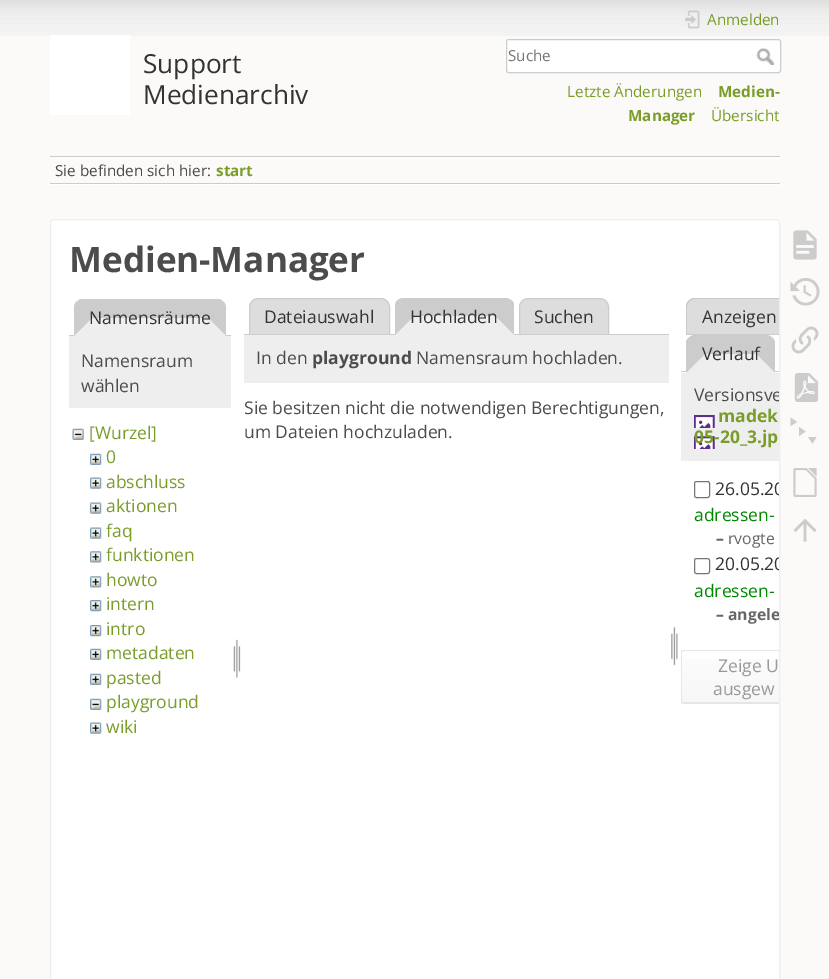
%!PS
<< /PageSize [829 979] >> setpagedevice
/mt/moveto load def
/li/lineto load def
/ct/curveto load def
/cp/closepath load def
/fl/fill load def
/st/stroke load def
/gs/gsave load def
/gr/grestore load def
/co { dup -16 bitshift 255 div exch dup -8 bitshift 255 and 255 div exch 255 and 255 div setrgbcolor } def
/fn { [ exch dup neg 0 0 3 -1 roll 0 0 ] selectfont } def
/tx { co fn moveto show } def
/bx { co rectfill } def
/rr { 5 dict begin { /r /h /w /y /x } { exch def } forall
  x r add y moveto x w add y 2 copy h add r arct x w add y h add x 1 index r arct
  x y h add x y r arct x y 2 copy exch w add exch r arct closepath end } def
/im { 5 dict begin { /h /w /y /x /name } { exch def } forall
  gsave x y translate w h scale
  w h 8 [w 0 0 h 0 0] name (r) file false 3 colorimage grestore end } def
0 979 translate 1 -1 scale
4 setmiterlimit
0 0 829 979 16#FBFAF9 bx
(media/1.raw) 0 0 829 36 im
50 35 80 80 16#FFFFFF bx
(media/2.raw) 685 10 15 19 im
506.5 39.5 274 33 2 rr gs fl gr
16#CCCCCC co
st
(media/3.raw) 756 48 18 17 im
50 156 730 1 16#CCCCCC bx
50 184 730 1 16#FFFFFF bx
50 158 730 1 16#FFFFFF bx
50 183 730 1 16#CCCCCC bx
16#FFFFFF co
50.5 219.5 729 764 3.5 rr gs fl gr
16#EEEEEE co
st
69 335 162 1 16#CCCCCC bx
16#EEEEEE co
83 299 mt 217 299 li 222 299 226 303 226 308 ct 226 336 li 74 336 li 74 308 li 74 303 78 299 83 299 ct cp fl
16#CCCCCC co
82 299 mt 80 299 78 300 77 302 ct 92 318 li 208 318 li 223 302 li 222 300 220 299 218 299 ct cp fl
226 336 mt 226 308 li 226 305.5 225 303 223.5 301.5 ct 207.5 317.5 li cp fl
16#EEEEEE co
226 336 mt 208 318 li 92 318 li 74 336 li cp fl
16#CCCCCC co
76.5 301.5 mt 75 303 74 305.5 74 308 ct 74 336 li 92.5 317.5 li cp fl
69 336 162 72 16#EEEEEE bx
(media/4.raw) 72 428 12 12 im
(media/5.raw) 90 453 12 12 im
(media/6.raw) 90 477 12 12 im
(media/6.raw) 90 502 12 12 im
(media/6.raw) 90 527 12 12 im
(media/7.raw) 90 551 12 12 im
(media/7.raw) 90 576 12 12 im
(media/8.raw) 90 600 12 12 im
(media/8.raw) 90 625 12 12 im
(media/5.raw) 90 648 12 12 im
(media/5.raw) 90 673 12 12 im
(media/9.raw) 90 698 12 12 im
(media/6.raw) 90 722 12 12 im
(media/10.raw) 233 639 8 39 im
16#DDDDDD co
258 298.5 mt 381 298.5 li 385.5 298.5 389.5 302.5 389.5 307 ct 389.5 334.5 li 249.5 334.5 li 249.5 307 li 249.5 302.5 253.5 298.5 258 298.5 ct cp gs fl gr
16#CCCCCC co
st
16#DDDDDD co
528 298.5 mt 600 298.5 li 604.5 298.5 608.5 302.5 608.5 307 ct 608.5 334.5 li 519.5 334.5 li 519.5 307 li 519.5 302.5 523.5 298.5 528 298.5 ct cp gs fl gr
16#CCCCCC co
st
244 334 425 1 16#CCCCCC bx
16#EEEEEE co
404 298 mt 505 298 li 510 298 514 302 514 307 ct 514 335 li 395 335 li 395 307 li 395 302 399 298 404 298 ct cp fl
16#CCCCCC co
404 298 mt 402 298 399 299 398 300 ct 414 316 li 495 316 li 511 300 li 510 299 507 298 505 298 ct cp fl
514 304 mt 514 335 li 495 316 li 511 300 li 512.5 301 513.5 302.5 514 304 ct cp fl
16#EEEEEE co
514 335 mt 495 316 li 414 316 li 395 335 li cp fl
16#CCCCCC co
395 335 mt 414 316 li 397.5 300 li 396 301.5 395 303.5 395 306 ct cp fl
244 335 425 48 16#EEEEEE bx
(media/11.raw) 671 626 7 40 im
16#DDDDDD co
695 298 mt 779 298 li 779 335 li 686 335 li 686 307 li 686 302 690 298 695 298 ct cp fl
16#CCCCCC co
695 298 mt 690 298 686 302 686 307 ct 686 335 li 779 335 li 779 334 li 687 334 li 687 307 li 687 303 691 299 695 299 ct 779 299 li 779 298 li cp fl
681 371 98 1 16#CCCCCC bx
16#EEEEEE co
695 335 mt 766 335 li 771 335 775 339 775 344 ct 775 373 li 686 373 li 686 344 li 686 339 690 335 695 335 ct cp fl
16#CCCCCC co
695 335 mt 766 335 li 768 335 771 336 772 338 ct 756 354 li 705 354 li 689 338 li 690 336 693 335 695 335 ct cp fl
772.5 337.5 mt 756 354 li 774.5 372 li 775 372 li 775 344 li 775 341.5 774 339 772.5 337.5 ct cp fl
16#EEEEEE co
774 372 mt 756 354 li 705 354 li 687 372 li cp fl
16#CCCCCC co
687 372 mt 705 354 li 689 337.5 li 687.5 338.5 686.5 340 686 342 ct 686 372 li cp fl
681 373 98 88 16#EEEEEE bx
(media/12.raw) 694 415 21 34 im
16#767676 co
694.5 481.5 15 16 2 rr st
694.5 558.5 15 15 2 rr st
gs 681 659 mt 779 659 li 779 703 li 681 703 li cp clip newpath
<< /ShadingType 2 /ColorSpace /DeviceRGB /Coords [813 651 813 703] /Extend [true true] /Function << /FunctionType 3 /Domain [0 1] /Functions [<< /FunctionType 2 /Domain [0 1] /C0 [1 1 1] /C1 [.98 .98 .98] /N 1 >> << /FunctionType 2 /Domain [0 1] /C0 [.98 .98 .98] /C1 [.969 .969 .969] /N 1 >> << /FunctionType 2 /Domain [0 1] /C0 [.902 .902 .902] /C1 [.902 .902 .902] /N 1 >>] /Bounds [.3 .99] /Encode [0 1 0 1 0 1] >> >> shfill gr
16#E6E6E6 co
684 650 mt 682 650 681 651 681 652 ct 681 702 li 681 703 682 704 684 704 ct 779 704 li 779 703 li 684 703 li 683 703 682 702 682 702 ct 682 652 li 682 652 683 651 684 651 ct 779 651 li 779 650 li cp fl
(media/13.raw) 793 230 24 30 im
(media/14.raw) 790 278 30 28 im
(media/15.raw) 791 326 28 28 im
(media/16.raw) 794 373 25 29 im
16#CCCCCC co
790.5 417.5 mt 797 422 li 790.5 426 li cp 799 427 mt 805.5 431.5 li 799 436 li cp 808 437 mt 816.5 437 li 812.5 443.5 li cp fl
(media/17.raw) 793 468 24 29 im
(media/18.raw) 793 518 24 24 im
(Support) 143 73 /OpenSans-Regular 26.25 16#333333 tx
(Medienarchiv) 143 104 /OpenSans-Regular 26.25 16#333333 tx
(Anmelden) 707 25 /OpenSans-Regular 15.25 16#7A9D29 tx
(Suche) 508 61 /OpenSans-Regular 15.25 16#757575 tx
(Letzte Änderungen) 567 97 /OpenSans-Regular 15.25 16#7A9D29 tx
(Medien-) 718 97 /OpenSans-Bold 15.25 16#7A9D29 tx
(Manager) 628 121 /OpenSans-Bold 15.25 16#7A9D29 tx
(Übersicht) 711 121 /OpenSans-Regular 15.25 16#7A9D29 tx
(Sie befinden sich hier:) 55 176 /OpenSans-Regular 15.25 16#4C4C4C tx
(start) 216 176 /OpenSans-Bold 15.25 16#7A9D29 tx
(Medien-Manager) 69 272 /OpenSans-Bold 35 16#4C4C4C tx
(Namensräume) 89 324 /OpenSans-Regular 17.5 16#333333 tx
(Namensraum) 81 367 /OpenSans-Regular 17.5 16#4C4C4C tx
(wählen) 81 392 /OpenSans-Regular 17.5 16#4C4C4C tx
([Wurzel]) 89 439 /OpenSans-Regular 17.5 16#7A9D29 tx
(0) 106 463 /OpenSans-Regular 17.5 16#7A9D29 tx
(abschluss) 106 488 /OpenSans-Regular 17.5 16#7A9D29 tx
(aktionen) 106 512 /OpenSans-Regular 17.5 16#7A9D29 tx
(faq) 106 537 /OpenSans-Regular 17.5 16#7A9D29 tx
(funktionen) 106 561 /OpenSans-Regular 17.5 16#7A9D29 tx
(howto) 106 586 /OpenSans-Regular 17.5 16#7A9D29 tx
(intern) 106 610 /OpenSans-Regular 17.5 16#7A9D29 tx
(intro) 106 635 /OpenSans-Regular 17.5 16#7A9D29 tx
(metadaten) 106 659 /OpenSans-Regular 17.5 16#7A9D29 tx
(pasted) 106 684 /OpenSans-Regular 17.5 16#7A9D29 tx
(playground) 106 708 /OpenSans-Regular 17.5 16#7A9D29 tx
(wiki) 106 733 /OpenSans-Regular 17.5 16#7A9D29 tx
(Dateiauswahl) 264 323 /OpenSans-Regular 17.5 16#333333 tx
(Hochladen) 410 323 /OpenSans-Regular 17.5 16#333333 tx
(Suchen) 534 323 /OpenSans-Regular 17.5 16#333333 tx
(In den) 256 364 /OpenSans-Regular 17.5 16#4C4C4C tx
(playground) 312 364 /OpenSans-Bold 17.5 16#4C4C4C tx
(Namensraum hochladen.) 416 364 /OpenSans-Regular 17.5 16#4C4C4C tx
(Sie besitzen nicht die notwendigen Berechtigungen,) 244 414 /OpenSans-Regular 17.5 16#4C4C4C tx
(um Dateien hochzuladen.) 244 438 /OpenSans-Regular 17.5 16#4C4C4C tx
(Anzeigen) 702 323 /OpenSans-Regular 17.5 16#333333 tx
(Verlauf) 702 360 /OpenSans-Regular 17.5 16#333333 tx
gs
51 220 728 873 2.5 rr clip newpath
(Versionsve) 694 401 /OpenSans-Regular 17.5 16#4C4C4C tx
gr
(madek) 718 422 /OpenSans-Bold 17.5 16#7A9D29 tx
(05-20_3.jp) 694 443 /OpenSans-Bold 17.5 16#7A9D29 tx
gs
51 220 728 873 2.5 rr clip newpath
(26.05.20) 715 495 /OpenSans-Regular 17.5 16#333333 tx
gr
(adressen-) 694 521 /OpenSans-Regular 17.5 16#008800 tx
(–) 716 544 /OpenSans-Bold 15.75 16#666666 tx
(rvogte) 728 544 /OpenSans-Regular 15.75 16#666666 tx
gs
51 220 728 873 2.5 rr clip newpath
(20.05.20) 715 570 /OpenSans-Regular 17.5 16#333333 tx
gr
(adressen-) 694 597 /OpenSans-Regular 17.5 16#008800 tx
gs
51 220 728 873 2.5 rr clip newpath
(– angele) 716 620 /OpenSans-Bold 15.75 16#666666 tx
gr
(Zeige U) 718 672 /OpenSans-Regular 17.5 16#999999 tx
(ausgew) 713 695 /OpenSans-Regular 17.5 16#999999 tx
showpage
